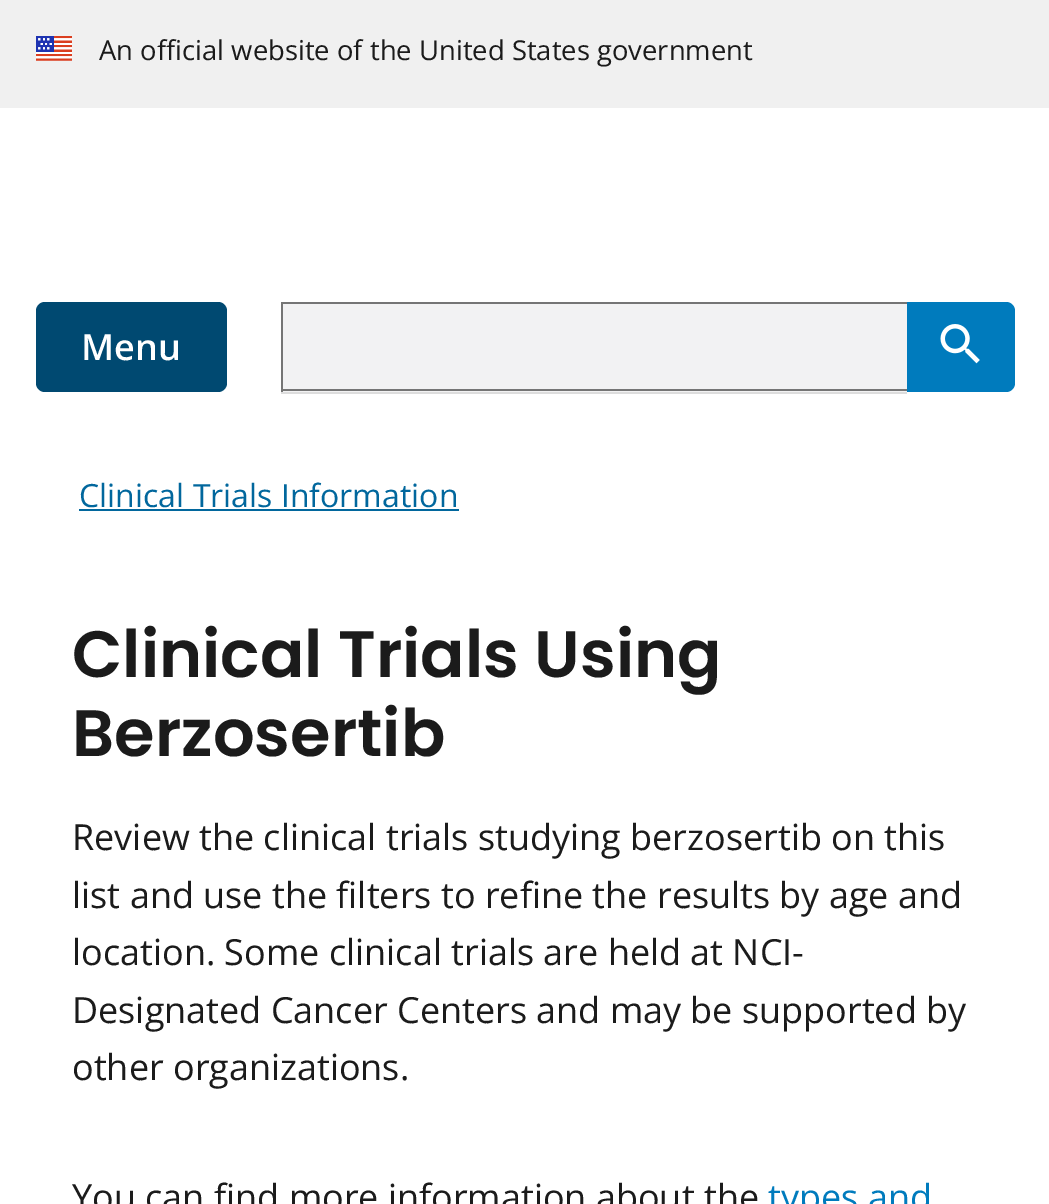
%!PS
<< /PageSize [1049 1204] >> setpagedevice
/mt/moveto load def
/li/lineto load def
/ct/curveto load def
/cp/closepath load def
/fl/fill load def
/co { dup -16 bitshift 255 div exch dup -8 bitshift 255 and 255 div exch 255 and 255 div setrgbcolor } def
/fn { [ exch dup neg 0 0 3 -1 roll 0 0 ] selectfont } def
/tx { co fn moveto show } def
/bx { co rectfill } def
/rr { 5 dict begin { /r /h /w /y /x } { exch def } forall
  x r add y moveto x w add y 2 copy h add r arct x w add y h add x 1 index r arct
  x y h add x y r arct x y 2 copy exch w add exch r arct closepath end } def
/im { 5 dict begin { /h /w /y /x /name } { exch def } forall
  gsave x y translate w h scale
  w h 8 [w 0 0 h 0 0] name (r) file false 3 colorimage grestore end } def
0 1204 translate 1 -1 scale
4 setmiterlimit
0 0 1049 1204 16#FFFFFF bx
0 0 1049 108 16#F0F0F0 bx
(media/1.raw) 36 36 36 25 im
16#004971 co
36 302 191 90 9 rr fl
283 304 624 88 16#F2F2F3 bx
281 302 626 2 16#757575 bx
281 389 626 2 16#757575 bx
281 302 2 90 16#757575 bx
16#007BBD co
907 302 mt 1006 302 li 1011 302 1015 306 1015 311 ct 1015 383 li 1015 388 1011 392 1006 392 ct 907 392 li cp fl
(media/2.raw) 940 324 40 40 im
281 392 626 2 16#DDDDDD bx
79 509 380 2 16#01679D bx
(An official website of the United States government) 99 60 /OpenSans-Regular 27.4 16#1B1B1B tx
(Menu) 81 360 /OpenSans-SemiBold 36 16#FFFFFF tx
(Clinical Trials Information) 79 507 /OpenSans-Regular 32 16#01679D tx
(Clinical Trials Using) 72 677 /Poppins-SemiBold 65.5 16#1B1B1B tx
(Berzosertib) 72 756 /Poppins-SemiBold 65.5 16#1B1B1B tx
(Review the clinical trials studying berzosertib on this) 72 850 /OpenSans-Regular 36 16#1B1B1B tx
(list and use the filters to refine the results by age and) 72 908 /OpenSans-Regular 36 16#1B1B1B tx
(location. Some clinical trials are held at NCI-) 72 965 /OpenSans-Regular 36 16#1B1B1B tx
(Designated Cancer Centers and may be supported by) 72 1023 /OpenSans-Regular 36 16#1B1B1B tx
(other organizations.) 72 1080 /OpenSans-Regular 36 16#1B1B1B tx
(You can find more information about the) 72 1210 /OpenSans-Regular 36 16#1B1B1B tx
(types and) 768 1210 /OpenSans-Regular 36 16#007BBD tx
showpage
